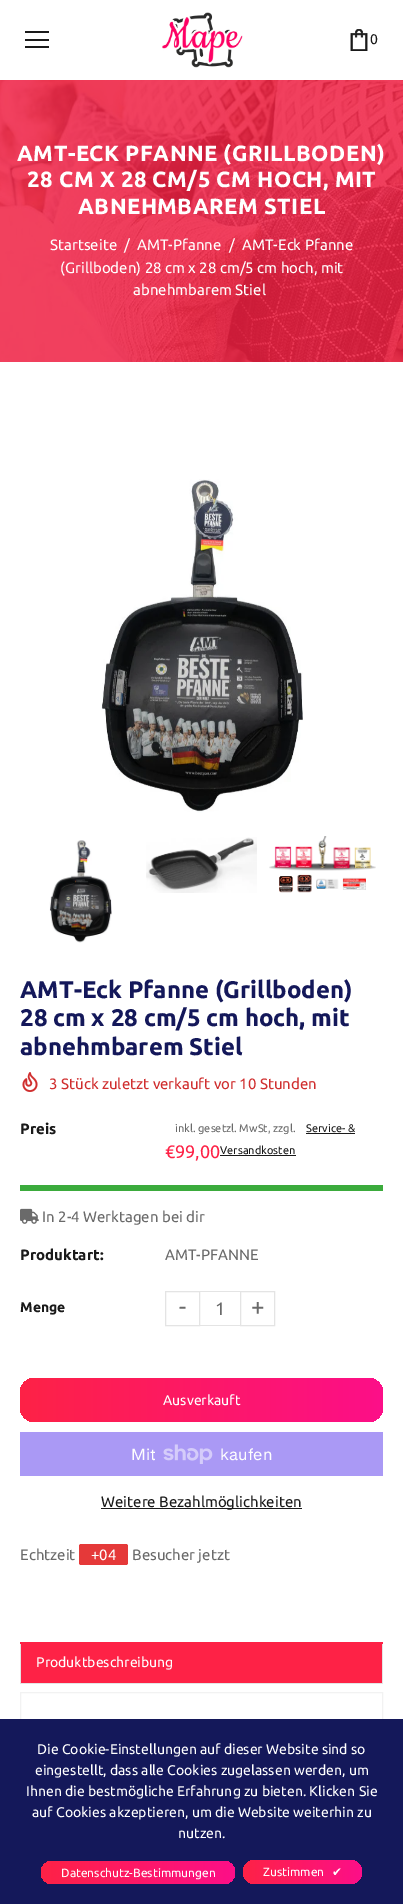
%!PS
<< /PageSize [403 1904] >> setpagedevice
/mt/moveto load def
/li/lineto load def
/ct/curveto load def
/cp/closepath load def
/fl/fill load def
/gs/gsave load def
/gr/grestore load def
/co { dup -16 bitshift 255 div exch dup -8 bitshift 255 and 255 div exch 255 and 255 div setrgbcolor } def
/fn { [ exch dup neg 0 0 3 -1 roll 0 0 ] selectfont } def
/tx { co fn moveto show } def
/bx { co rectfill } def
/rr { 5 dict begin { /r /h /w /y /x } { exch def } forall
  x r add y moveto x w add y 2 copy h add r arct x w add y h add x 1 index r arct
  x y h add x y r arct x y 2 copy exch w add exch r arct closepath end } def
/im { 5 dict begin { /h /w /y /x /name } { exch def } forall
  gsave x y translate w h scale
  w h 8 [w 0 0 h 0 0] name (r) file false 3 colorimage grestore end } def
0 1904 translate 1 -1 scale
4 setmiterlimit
0 0 403 1904 16#FFFFFF bx
25 31 24 2 16#1A1A1A bx
25 39 24 2 16#1A1A1A bx
25 46 24 2 16#1A1A1A bx
(media/1.raw) 162 12 81 56 im
(media/2.raw) 350 29 18 22 im
(media/3.raw) 0 80 403 282 im
(media/4.raw) 101 479 202 334 im
(media/5.raw) 49 840 63 103 im
(media/6.raw) 146 837 111 56 im
(media/7.raw) 269 836 107 57 im
(media/8.raw) 22 1072 16 20 im
306 1133 49 1 16#1A1A1A bx
220 1155 76 1 16#1A1A1A bx
20 1185 363 6 16#3BAB3C bx
(media/9.raw) 20 1208 19 16 im
16#E4E4E4 co
165.5 1291.5 34 34 rectstroke
200 1291 40 1 16#E4E4E4 bx
200 1325 40 1 16#E4E4E4 bx
240.5 1291.5 34 34 rectstroke
gs 20 1378 363 44 15 rr clip newpath
<< /ShadingType 2 /ColorSpace /DeviceRGB /Coords [20 1400 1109 1400] /Extend [true true] /Function << /FunctionType 3 /Domain [0 1] /Functions [<< /FunctionType 2 /Domain [0 1] /C0 [.996 .133 .275] /C1 [.988 .059 .533] /N 1 >> << /FunctionType 2 /Domain [0 1] /C0 [.988 .059 .533] /C1 [.988 .059 .533] /N 1 >> << /FunctionType 2 /Domain [0 1] /C0 [.988 .059 .533] /C1 [.996 .133 .275] /N 1 >>] /Bounds [.33 .67] /Encode [0 1 0 1 0 1] >> >> shfill gr
20 1432 363 44 16#AA99F5 bx
(media/10.raw) 163 1444 50 20 im
101 1508 201 1 16#1A1A1A bx
16#E53939 co
81 1544 mt 100 1544 li 100 1565 li 81 1565 li 80 1565 79 1564 79 1563 ct 79 1546 li 79 1545 80 1544 81 1544 ct cp fl
100 1544 mt 126 1544 li 127 1544 128 1545 128 1546 ct 128 1563 li 128 1564 127 1565 126 1565 ct 100 1565 li cp fl
21 1644 361 39 16#FE2246 bx
382 1642 1 42 16#E4E4E4 bx
20 1683 363 1 16#E4E4E4 bx
20 1642 1 42 16#E4E4E4 bx
20 1642 363 2 16#FE2246 bx
16#F2F2F2 co
20.5 1692.5 362 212 rectstroke
0 1719 403 185 16#14185A bx
gs 41 1861 194 23 11.5 rr clip newpath
<< /ShadingType 2 /ColorSpace /DeviceRGB /Coords [41 1873 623 1873] /Extend [true true] /Function << /FunctionType 3 /Domain [0 1] /Functions [<< /FunctionType 2 /Domain [0 1] /C0 [.996 .133 .275] /C1 [.988 .059 .533] /N 1 >> << /FunctionType 2 /Domain [0 1] /C0 [.988 .059 .533] /C1 [.988 .059 .533] /N 1 >> << /FunctionType 2 /Domain [0 1] /C0 [.988 .059 .533] /C1 [.996 .133 .275] /N 1 >>] /Bounds [.33 .67] /Encode [0 1 0 1 0 1] >> >> shfill gr
gs 243 1860 119 24 12 rr clip newpath
<< /ShadingType 2 /ColorSpace /DeviceRGB /Coords [243 1872 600 1872] /Extend [true true] /Function << /FunctionType 3 /Domain [0 1] /Functions [<< /FunctionType 2 /Domain [0 1] /C0 [.996 .133 .275] /C1 [.988 .059 .533] /N 1 >> << /FunctionType 2 /Domain [0 1] /C0 [.988 .059 .533] /C1 [.988 .059 .533] /N 1 >> << /FunctionType 2 /Domain [0 1] /C0 [.988 .059 .533] /C1 [.996 .133 .275] /N 1 >>] /Bounds [.33 .67] /Encode [0 1 0 1 0 1] >> >> shfill gr
(0) 370 44 /Ubuntu-Regular 14 16#1A1A1A tx
/Ubuntu-Bold 22 fn
16#FFFFFF co
17 161 mt .5 0 (AMT-ECK PFANNE \(GRILLBODEN\)) ashow
27 187 mt .5 0 (28 CM X 28 CM/5 CM HOCH, MIT) ashow
78 214 mt .5 0 (ABNEHMBAREM STIEL) ashow
(Startseite) 50 250 /Ubuntu-Regular 15 16#FFFFFF tx
(/) 124 250 /Ubuntu-Regular 15 16#FFFFFF tx
(AMT-Pfanne) 137 250 /Ubuntu-Regular 15 16#FFFFFF tx
(/) 229 250 /Ubuntu-Regular 15 16#FFFFFF tx
(AMT-Eck Pfanne) 242 250 /Ubuntu-Regular 15 16#FFFFFF tx
(\(Grillboden\) 28 cm x 28 cm/5 cm hoch, mit) 60 273 /Ubuntu-Regular 15 16#FFFFFF tx
(abnehmbarem Stiel) 133 295 /Ubuntu-Regular 15 16#FFFFFF tx
(AMT-Eck Pfanne \(Grillboden\)) 20 998 /Ubuntu-Bold 24 16#14185A tx
(28 cm x 28 cm/5 cm hoch, mit) 20 1026 /Ubuntu-Bold 24 16#14185A tx
(abnehmbarem Stiel) 20 1055 /Ubuntu-Bold 24 16#14185A tx
(3 Stück zuletzt verkauft vor 10 Stunden) 49 1089 /Ubuntu-Regular 15 16#D02E2E tx
(Preis) 20 1134 /Ubuntu-Bold 15 16#1A1A1A tx
(inkl. gesetzl. MwSt, zzgl.) 175 1132 /Ubuntu-Regular 11 16#6A6A6A tx
(Service- &) 306 1132 /Ubuntu-Regular 11 16#1A1A1A tx
(€99,00) 165 1158 /Ubuntu-Regular 18 16#FE2246 tx
(Versandkosten) 220 1154 /Ubuntu-Regular 11 16#1A1A1A tx
(In 2-4 Werktagen bei dir) 42 1222 /Ubuntu-Regular 15 16#6A6A6A tx
(Produktart:) 20 1260 /Ubuntu-Bold 15 16#1A1A1A tx
(AMT-PFANNE) 165 1260 /Ubuntu-Regular 15 16#6A6A6A tx
(Menge) 20 1312 /Ubuntu-Bold 14 16#1A1A1A tx
(-) 179 1315 /Ubuntu-Regular 24 16#6A6A6A tx
(1) 215 1315 /Ubuntu-Regular 18 16#6A6A6A tx
(+) 251 1315 /Ubuntu-Regular 24 16#6A6A6A tx
(Ausverkauft) 163 1405 /Ubuntu-Regular 14 16#FFFFFF tx
(Mit) 131 1460 /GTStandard-Regular 16 16#FFFFFF tx
(kaufen) 220 1460 /GTStandard-Regular 16 16#FFFFFF tx
(Weitere Bezahlmöglichkeiten) 101 1507 /Ubuntu-Regular 15 16#1A1A1A tx
(Echtzeit) 20 1560 /Ubuntu-Regular 15 16#6A6A6A tx
(+04) 91 1560 /Ubuntu-Regular 15 16#FFFFFF tx
(Besucher jetzt) 132 1560 /Ubuntu-Regular 15 16#6A6A6A tx
(Produktbeschreibung) 36 1667 /Ubuntu-Regular 14 16#FFFFFF tx
(Die Cookie-Einstellungen auf dieser Website sind so) 37 1754 /Ubuntu-Regular 14 16#FFFFFF tx
(eingestellt, dass alle Cookies zugelassen werden, um) 35 1775 /Ubuntu-Regular 14 16#FFFFFF tx
(Ihnen die bestmögliche Erfahrung zu bieten. Klicken Sie) 26 1796 /Ubuntu-Regular 14 16#FFFFFF tx
(auf Cookies akzeptieren, um die Website weiterhin zu) 32 1817 /Ubuntu-Regular 14 16#FFFFFF tx
(nutzen.) 178 1838 /Ubuntu-Regular 14 16#FFFFFF tx
(Datenschutz-Bestimmungen) 61 1877 /Ubuntu-Regular 12 16#FFFFFF tx
(Zustimmen) 263 1876 /Ubuntu-Regular 12 16#FFFFFF tx
(✔) 332 1876 /DejaVuSans-Regular 12 16#FFFFFF tx
showpage
